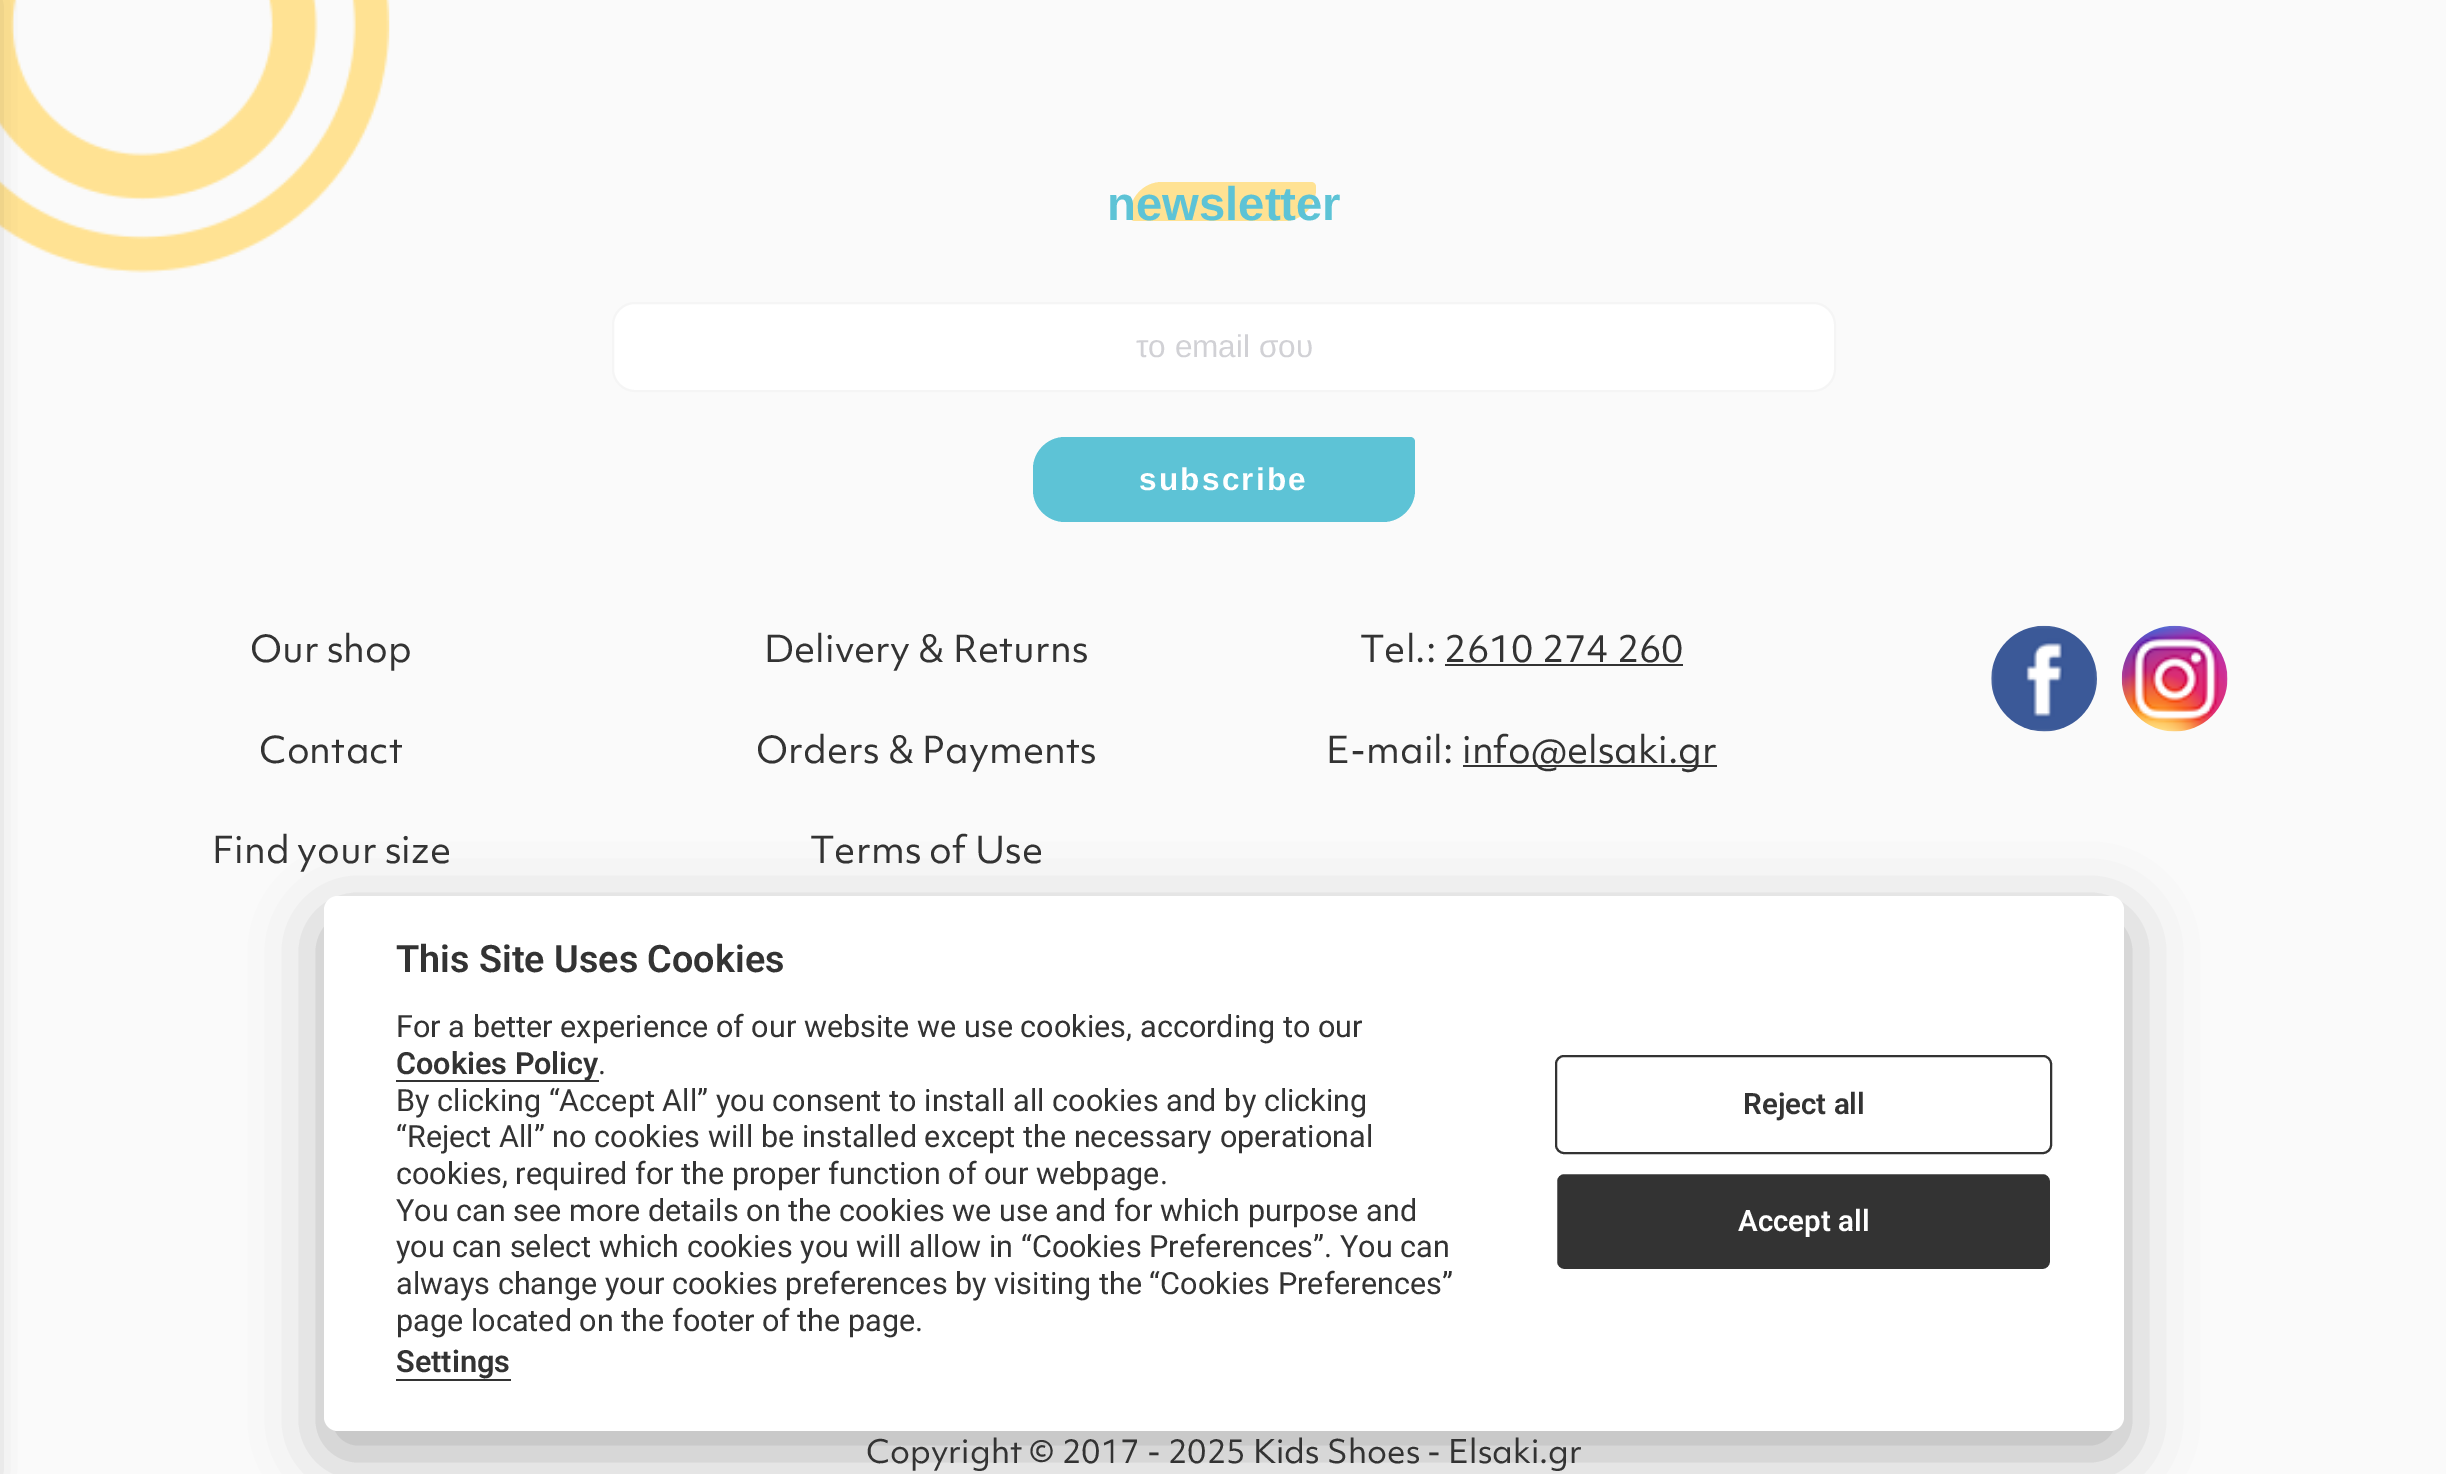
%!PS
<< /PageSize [2446 1474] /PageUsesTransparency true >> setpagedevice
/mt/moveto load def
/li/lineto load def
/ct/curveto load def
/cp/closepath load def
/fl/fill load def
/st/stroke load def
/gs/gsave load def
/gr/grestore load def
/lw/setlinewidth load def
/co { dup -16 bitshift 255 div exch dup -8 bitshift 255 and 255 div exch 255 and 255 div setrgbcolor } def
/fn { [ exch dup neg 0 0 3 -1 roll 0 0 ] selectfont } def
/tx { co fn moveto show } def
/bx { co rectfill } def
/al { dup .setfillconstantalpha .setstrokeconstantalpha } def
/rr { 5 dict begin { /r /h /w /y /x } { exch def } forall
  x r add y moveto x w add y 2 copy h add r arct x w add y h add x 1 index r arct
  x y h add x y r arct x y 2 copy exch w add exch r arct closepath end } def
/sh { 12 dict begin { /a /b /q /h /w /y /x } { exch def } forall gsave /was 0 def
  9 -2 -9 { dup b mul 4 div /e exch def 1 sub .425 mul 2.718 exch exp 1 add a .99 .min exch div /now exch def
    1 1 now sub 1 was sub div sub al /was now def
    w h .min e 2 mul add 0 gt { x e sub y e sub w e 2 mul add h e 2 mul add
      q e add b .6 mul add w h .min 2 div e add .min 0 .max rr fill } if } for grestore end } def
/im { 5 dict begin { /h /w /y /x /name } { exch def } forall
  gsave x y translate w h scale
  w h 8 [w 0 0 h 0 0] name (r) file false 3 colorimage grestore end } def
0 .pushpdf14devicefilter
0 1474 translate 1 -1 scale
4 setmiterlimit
0 0 2446 1474 16#FAFAFA bx
(media/1.raw) 0 0 390 273 im
16#000000 co
-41 0 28 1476 0 13.5 .4 sh
16#FFE293 co
1162 182 mt 1311 182 li 1314 182 1316 184 1316 187 ct 1316 189 li 1316 206.5 1301.5 221 1284 221 ct 1135 221 li 1132 221 1130 219 1130 216 ct 1130 214 li 1130 196.5 1144.5 182 1162 182 ct cp fl
16#FFFFFF co
613 303 1222 88 22 rr gs fl gr
16#F5F5F5 co
2 lw
st
16#5DC3D6 co
1065 437 mt 1410 437 li 1413 437 1415 439 1415 442 ct 1415 490 li 1415 507.5 1400.5 522 1383 522 ct 1065 522 li 1047.5 522 1033 507.5 1033 490 ct 1033 469 li 1033 451.5 1047.5 437 1065 437 ct cp fl
1445 664 238 2 16#333333 bx
1463 765 254 2 16#333333 bx
(media/2.raw) 1991 625 106 107 im
(media/3.raw) 2121 625 107 107 im
16#020203 co
324 918 1800 536 14 34 .28 sh
16#FFFFFF co
324 896 1800 535 14 rr fl
396 1080 203 2 16#333333 bx
396 1379 115 2 16#333333 bx
1556 1056 495 97 8 rr st
1556 1173 495 97 8 rr gs fl gr
16#FFFFFF co
st
(newsletter) 1107 220 /LiberationSans-Bold 47.25 16#5DC3D6 tx
(το email σου) 1136 357 /LiberationSans-Regular 31.5 16#D1D1D5 tx
/LiberationSans-Bold 31.5 fn
16#FFFFFF co
1139 490 mt 2.25 0 (subscribe) ashow
(Our shop) 250 662 /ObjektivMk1-Regular 36 16#333333 tx
(Contact) 259 763 /ObjektivMk1-Regular 36 16#333333 tx
(Find your size) 212 863 /ObjektivMk1-Regular 36 16#333333 tx
(Delivery & Returns) 764 662 /ObjektivMk1-Regular 36 16#333333 tx
(Orders & Payments) 756 763 /ObjektivMk1-Regular 36 16#333333 tx
(Terms of Use) 810 863 /ObjektivMk1-Regular 36 16#333333 tx
(Tel.: 2610 274 260) 1360 662 /ObjektivMk1-Regular 36 16#333333 tx
(E-mail:) 1326 763 /ObjektivMk1-Regular 36 16#333333 tx
(info@elsaki.gr) 1462 763 /ObjektivMk1-Regular 36 16#333333 tx
(Copyright © 2017 - 2025 Kids Shoes - Elsaki.gr) 866 1463 /ObjektivMk1-Regular 31.5 16#333333 tx
(This Site Uses Cookies) 396 972 /Roboto-SemiBold 37.75 16#333333 tx
(For a better experience of our website we use cookies, according to our) 396 1037 /Roboto-Regular 30.6 16#333333 tx
(Cookies Policy) 396 1074 /Roboto-SemiBold 30.6 16#333333 tx
(.) 598 1074 /Roboto-Regular 30.6 16#333333 tx
(By clicking “Accept All” you consent to install all cookies and by clicking) 396 1111 /Roboto-Regular 30.6 16#333333 tx
(“Reject All” no cookies will be installed except the necessary operational) 396 1147 /Roboto-Regular 30.6 16#333333 tx
(cookies, required for the proper function of our webpage.) 396 1184 /Roboto-Regular 30.6 16#333333 tx
(You can see more details on the cookies we use and for which purpose and) 396 1221 /Roboto-Regular 30.6 16#333333 tx
(you can select which cookies you will allow in “Cookies Preferences”. You can) 396 1257 /Roboto-Regular 30.6 16#333333 tx
(always change your cookies preferences by visiting the “Cookies Preferences”) 396 1294 /Roboto-Regular 30.6 16#333333 tx
(page located on the footer of the page.) 396 1331 /Roboto-Regular 30.6 16#333333 tx
(Settings) 396 1372 /Roboto-SemiBold 30.6 16#333333 tx
(Reject all) 1743 1114 /Roboto-SemiBold 29.5 16#333333 tx
(Accept all) 1738 1231 /Roboto-SemiBold 29.5 16#FFFFFF tx
.poppdf14devicefilter showpage
